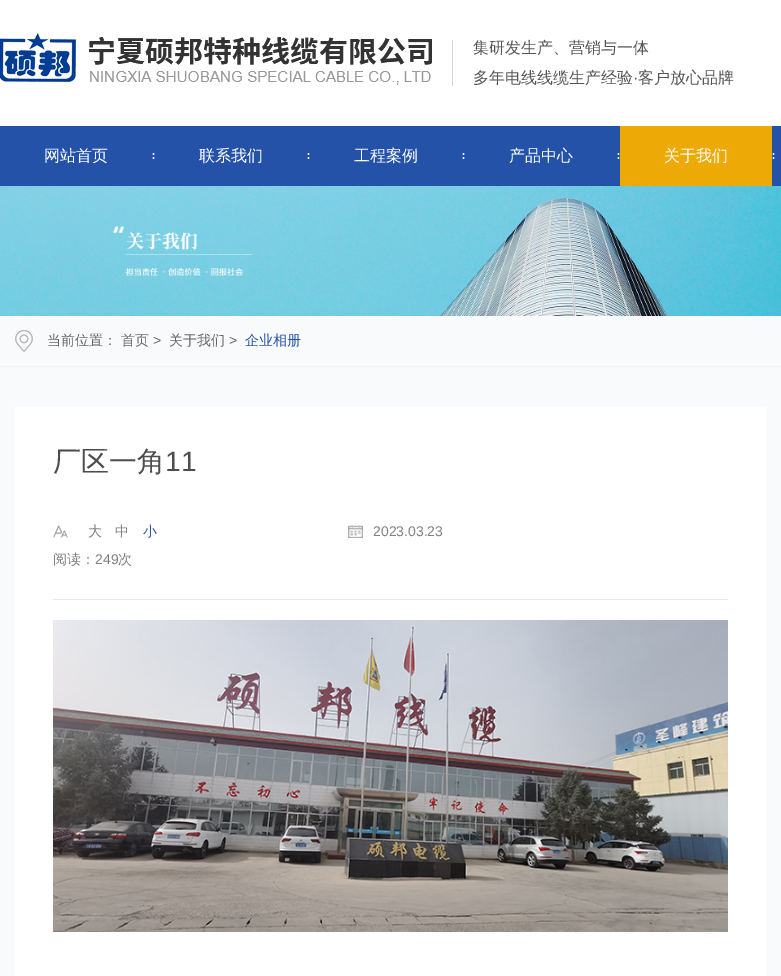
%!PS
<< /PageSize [781 976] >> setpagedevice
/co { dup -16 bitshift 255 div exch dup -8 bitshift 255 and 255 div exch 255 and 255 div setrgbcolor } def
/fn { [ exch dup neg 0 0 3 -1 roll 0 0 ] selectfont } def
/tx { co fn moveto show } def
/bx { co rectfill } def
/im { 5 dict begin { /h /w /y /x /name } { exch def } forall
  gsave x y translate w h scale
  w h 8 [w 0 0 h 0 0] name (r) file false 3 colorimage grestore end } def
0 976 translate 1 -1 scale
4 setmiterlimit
0 0 781 976 16#FFFFFF bx
(media/1.raw) 0 33 432 52 im
452 40 1 46 16#D7D7D7 bx
0 126 781 60 16#2552A9 bx
(media/2.raw) 152 153 3 6 im
(media/2.raw) 307 153 3 6 im
(media/2.raw) 462 153 3 6 im
(media/2.raw) 617 153 3 6 im
620 126 152 60 16#EDA906 bx
(media/2.raw) 772 153 3 6 im
0 316 781 660 16#F8FAFB bx
(media/3.raw) 0 186 781 130 im
0 366 781 1 16#F2F2F2 bx
(media/4.raw) 15 330 18 22 im
15 407 751 569 16#FFFFFF bx
53 599 675 1 16#E9E9E9 bx
(media/5.raw) 53 525 15 13 im
(media/6.raw) 348 525 15 13 im
(media/7.raw) 53 620 675 312 im
(集研发生产、营销与一体) 473 53 /WenQuanYiZenHei-Medium 16 16#555555 tx
(多年电线线缆生产经验) 473 83 /WenQuanYiZenHei-Medium 16 16#555555 tx
(·) 633 83 /LiberationSans-Regular 16 16#555555 tx
(客户放心品牌) 638 83 /WenQuanYiZenHei-Medium 16 16#555555 tx
(网站首页) 44 161 /WenQuanYiZenHei-Medium 16 16#FFFFFF tx
(联系我们) 199 161 /WenQuanYiZenHei-Medium 16 16#FFFFFF tx
(工程案例) 354 161 /WenQuanYiZenHei-Medium 16 16#FFFFFF tx
(产品中心) 509 161 /WenQuanYiZenHei-Medium 16 16#FFFFFF tx
(关于我们) 664 161 /WenQuanYiZenHei-Medium 16 16#FFFFFF tx
(当前位置：) 47 345 /WenQuanYiZenHei-Medium 14 16#666666 tx
(首页) 121 345 /WenQuanYiZenHei-Medium 14 16#666666 tx
(>) 153 345 /LiberationSans-Regular 14 16#666666 tx
(关于我们) 169 345 /WenQuanYiZenHei-Medium 14 16#666666 tx
(>) 229 345 /LiberationSans-Regular 14 16#666666 tx
(企业相册) 245 345 /WenQuanYiZenHei-Medium 14 16#2552A9 tx
(厂区一角) 53 471 /WenQuanYiZenHei-Medium 28 16#4D4D4D tx
(11) 165 471 /LiberationSans-Regular 28 16#4D4D4D tx
(大) 88 536 /WenQuanYiZenHei-Medium 14 16#808080 tx
(中) 115 536 /WenQuanYiZenHei-Medium 14 16#808080 tx
(小) 143 536 /WenQuanYiZenHei-Medium 14 16#2552A9 tx
(2023.03.23) 373 536 /LiberationSans-Regular 14 16#808080 tx
(阅读：) 53 564 /WenQuanYiZenHei-Medium 14 16#808080 tx
(249) 95 564 /LiberationSans-Regular 14 16#808080 tx
(次) 118 564 /WenQuanYiZenHei-Medium 14 16#808080 tx
showpage
